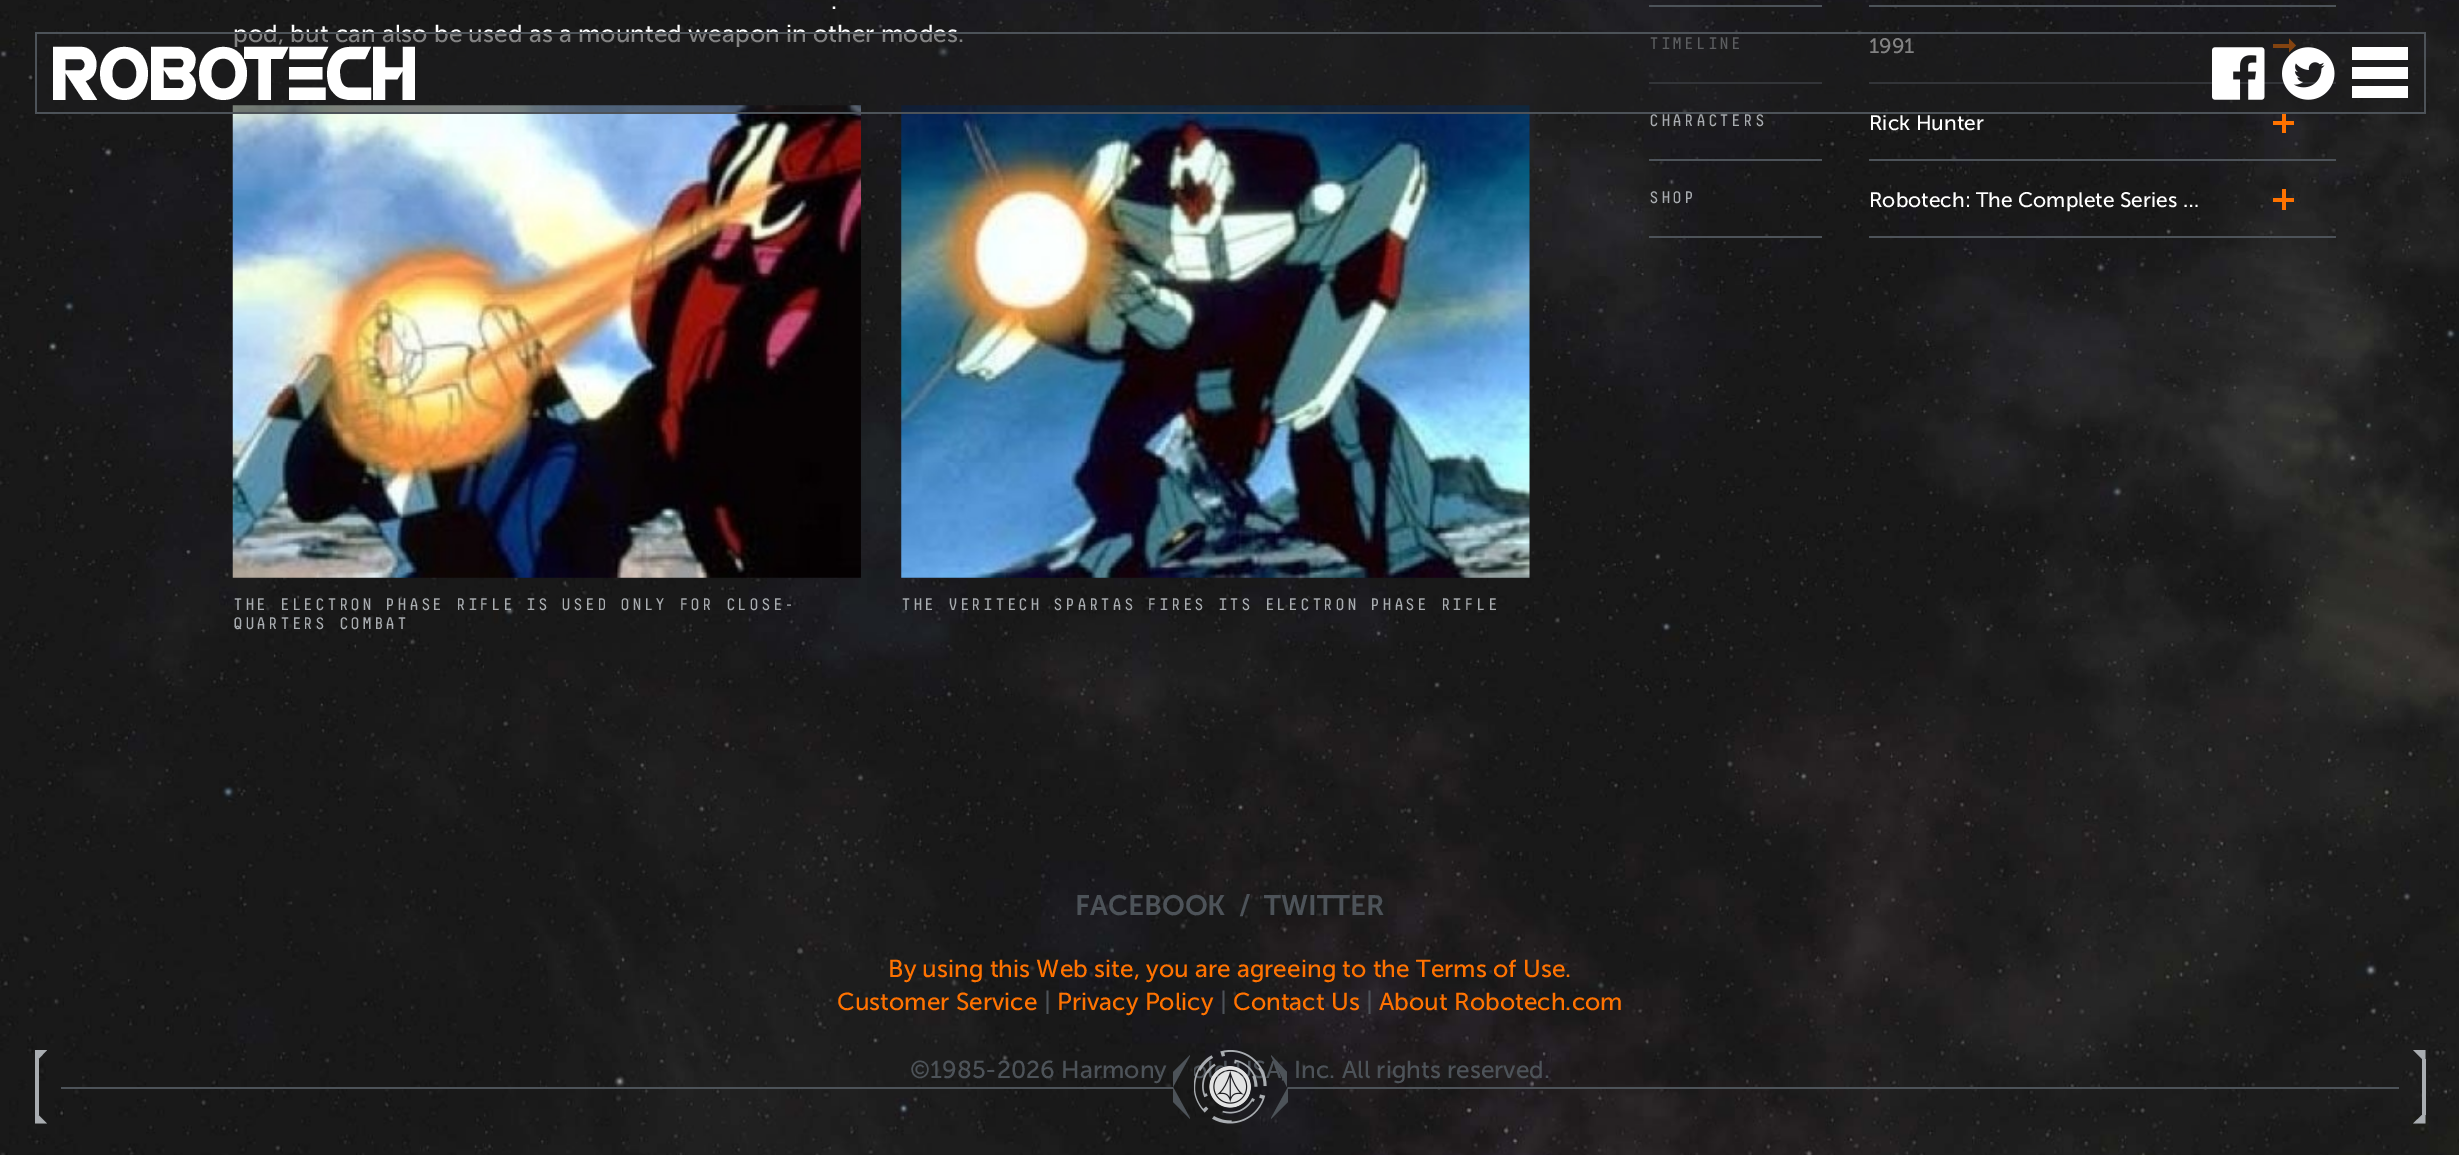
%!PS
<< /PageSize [2459 1155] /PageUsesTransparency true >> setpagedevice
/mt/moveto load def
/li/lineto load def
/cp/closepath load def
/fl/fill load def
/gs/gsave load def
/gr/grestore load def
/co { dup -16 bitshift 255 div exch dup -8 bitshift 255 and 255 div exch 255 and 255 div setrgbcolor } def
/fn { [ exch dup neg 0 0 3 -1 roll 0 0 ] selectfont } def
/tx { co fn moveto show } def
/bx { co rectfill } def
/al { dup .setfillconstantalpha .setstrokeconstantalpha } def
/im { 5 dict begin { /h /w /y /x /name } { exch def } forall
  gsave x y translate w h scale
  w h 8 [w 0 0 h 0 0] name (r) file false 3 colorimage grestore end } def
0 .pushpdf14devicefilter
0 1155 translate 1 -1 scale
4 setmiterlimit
0 0 2459 1155 16#FFFFFF bx
(media/1.raw) 0 0 2459 1155 im
(media/2.raw) 232 105 629 473 im
(media/3.raw) 901 105 629 473 im
1649 5 173 2 16#4D5359 bx
1869 5 467 2 16#4D5359 bx
2273 44 21 4 16#FF7200 bx
2289 52.5 mt 2289 38.5 li 2296 45.5 li cp fl
1649 82 173 2 16#4D5359 bx
1869 82 467 2 16#4D5359 bx
2273 121 21 4 16#FF7200 bx
2282 112 4 21 16#FF7200 bx
1649 159 173 2 16#4D5359 bx
1649 236 173 2 16#4D5359 bx
1869 159 467 2 16#4D5359 bx
1869 236 467 2 16#4D5359 bx
2273 198 21 4 16#FF7200 bx
2282 189 4 21 16#FF7200 bx
35 32 2 82 16#4D5359 bx
35 112 2391 2 16#4D5359 bx
35 1059 4 56 16#A9ADB1 bx
35 1050 mt 47 1050 li 38.5 1059 li 35 1059 li cp fl
47 1123.5 mt 35 1123.5 li 35 1115 li 38.5 1115 li cp fl
61 1087 1112 2 16#4D5359 bx
gs
1173 1054 17 66 rectclip
1173 1072 mt 1173 1087 li 1191 1054 li cp 1173 1102 mt 1191 1120 li 1173 1087 li cp 1209 1102 mt 1209 1087 li 1191 1120 li cp 1191 1054 mt 1209 1087 li 1209 1072 li cp fl
gr
gs
1271 1054 17 66 rectclip
1252 1072 mt 1252 1087 li 1270 1054 li cp 1252 1102 mt 1270 1120 li 1252 1087 li cp 1288 1102 mt 1288 1087 li 1270 1120 li cp 1270 1054 mt 1287 1087 li 1287 1072 li cp fl
gr
1288 1087 1111 2 16#4D5359 bx
2422 1059 4 56 16#A9ADB1 bx
2413 1050 mt 2425.5 1050 li 2425.5 1059 li 2422 1059 li cp fl
2425.5 1123.5 mt 2413 1123.5 li 2422 1115 li 2425.5 1115 li cp fl
(.) 831 9 /MuseoSans-Regular 24.5 16#FFFFFF tx
(pod, but can also be used as a mounted weapon in other modes.) 233 42 /MuseoSans-Regular 24.5 16#FFFFFF tx
/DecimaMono-Regular 16.65 fn
16#A9ADB1 co
233 610 mt 1.75 0 (THE ELECTRON PHASE RIFLE IS USED ONLY FOR CLOSE-) ashow
233 629 mt 1.75 0 (QUARTERS COMBAT) ashow
901 610 mt 1.75 0 (THE VERITECH SPARTAS FIRES ITS ELECTRON PHASE RIFLE) ashow
1649 49 mt 1.75 0 (TIMELINE) ashow
(1991) 1869 53 /MuseoSans-Regular 21 16#FFFFFF tx
/DecimaMono-Regular 16.65 fn
16#A9ADB1 co
1649 126 mt 1.75 0 (CHARACTERS) ashow
(Rick Hunter) 1869 130 /MuseoSans-Regular 21 16#FFFFFF tx
/DecimaMono-Regular 16.65 fn
16#A9ADB1 co
1649 203 mt 1.75 0 (SHOP) ashow
(Robotech: The Complete Series …) 1869 207 /MuseoSans-Regular 21 16#FFFFFF tx
0.55 al
37 34 2387 78 16#1D1D1E bx
1 al
35 32 2391 2 16#4D5359 bx
/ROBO-Regular 66.5 fn
16#FFFFFF co
53 100 mt -2 0 (ROBO) ashow
244 100 mt -2 0 (TE) ashow
327 100 mt -2 0 (C) ashow
373 100 mt -2 0 (H) ashow
2424 32 2 82 16#4D5359 bx
(media/4.raw) 2212 47 53 53 im
(media/5.raw) 2282 47 53 53 im
2352 47 56 13 16#FFFFFF bx
2352 86 56 12 16#FFFFFF bx
2352 67 56 12 16#FFFFFF bx
(FACEBOOK) 1075 915 /MuseoSans-SemiBold 28 16#4D5359 tx
(/) 1239 915 /MuseoSans-SemiBold 28 16#4D5359 tx
(TWITTER) 1264 915 /MuseoSans-SemiBold 28 16#4D5359 tx
(By using this Web site, you are agreeing to the Terms of Use.) 888 977 /MuseoSans-Regular 24.5 16#FF7200 tx
(Customer Service) 837 1010 /MuseoSans-Regular 24.5 16#FF7200 tx
(|) 1044 1010 /MuseoSans-Regular 24.5 16#4D5359 tx
(Privacy Policy) 1057 1010 /MuseoSans-Regular 24.5 16#FF7200 tx
(|) 1220 1010 /MuseoSans-Regular 24.5 16#4D5359 tx
(Contact Us) 1233 1010 /MuseoSans-Regular 24.5 16#FF7200 tx
(|) 1366 1010 /MuseoSans-Regular 24.5 16#4D5359 tx
(About Robotech.com) 1379 1010 /MuseoSans-Regular 24.5 16#FF7200 tx
(©1985-2026 Harmony) 910 1078 /MuseoSans-Regular 24.5 16#4D5359 tx
(A, Inc. All rights reserved.) 1266 1078 /MuseoSans-Regular 24.5 16#4D5359 tx
(media/6.raw) 1194 1050 73 74 im
(media/7.raw) 1202 1059 56 55 im
(media/8.raw) 1209 1066 42 42 im
.poppdf14devicefilter showpage
